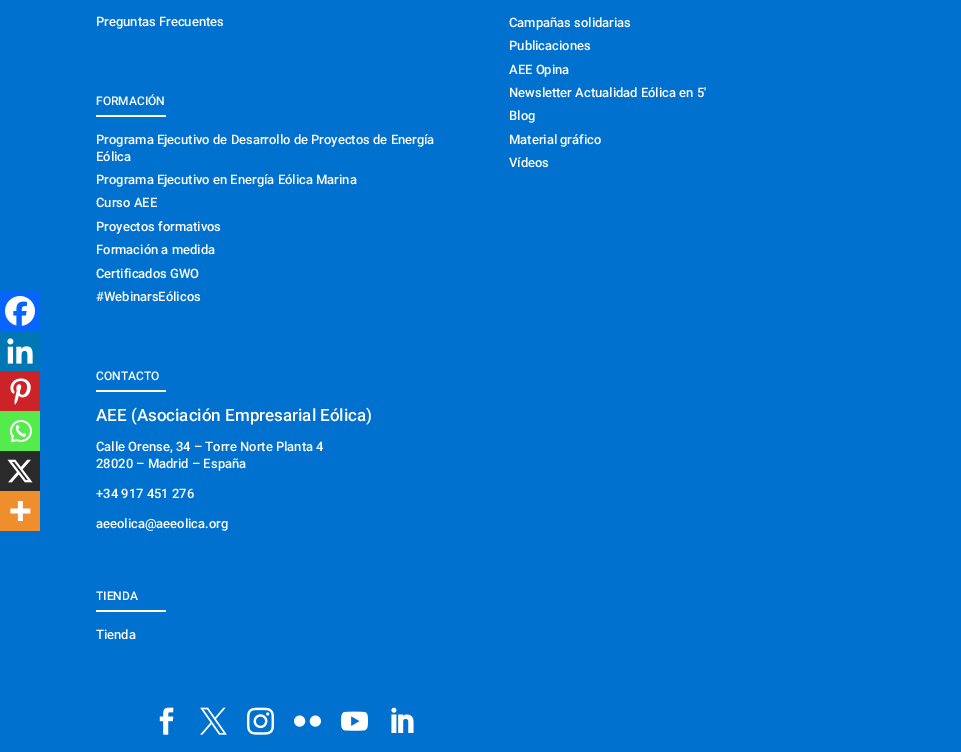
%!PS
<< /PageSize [961 752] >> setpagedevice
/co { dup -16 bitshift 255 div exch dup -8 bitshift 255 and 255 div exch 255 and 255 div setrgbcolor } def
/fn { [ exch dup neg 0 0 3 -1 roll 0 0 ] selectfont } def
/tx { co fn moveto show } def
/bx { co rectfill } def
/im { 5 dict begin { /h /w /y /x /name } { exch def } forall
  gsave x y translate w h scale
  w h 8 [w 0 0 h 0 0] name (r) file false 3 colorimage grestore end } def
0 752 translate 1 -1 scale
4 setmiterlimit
0 0 961 752 16#0071CE bx
0 291 40 40 16#0765FE bx
(media/1.raw) 5 296 30 30 im
0 331 40 40 16#0077B5 bx
(media/2.raw) 7 338 26 26 im
0 371 40 40 16#CC2329 bx
(media/3.raw) 10 378 21 27 im
0 411 40 40 16#55EB4C bx
(media/4.raw) 10 420 22 23 im
0 451 40 40 16#2A2A2A bx
(media/5.raw) 7 459 26 24 im
0 491 40 40 16#EE8E2D bx
(media/6.raw) 10 501 21 20 im
96 115 70 2 16#FFFFFF bx
96 390 70 2 16#FFFFFF bx
96 610 70 2 16#FFFFFF bx
(media/7.raw) 159 707 15 28 im
(media/8.raw) 200 707 27 28 im
(media/9.raw) 247 707 27 28 im
(media/10.raw) 294 715 27 12 im
(media/11.raw) 341 711 27 20 im
(media/12.raw) 391 707 23 26 im
(Preguntas Frecuentes) 96 26 /Roboto-Medium 13 16#FFFFFF tx
(FORMACIÓN) 96 105 /Roboto-Medium 12 16#FFFFFF tx
(Programa Ejecutivo de Desarrollo de Proyectos de Energía) 96 144 /Roboto-Medium 13 16#FFFFFF tx
(Eólica) 96 161 /Roboto-Medium 13 16#FFFFFF tx
(Programa Ejecutivo en Energía Eólica Marina) 96 184 /Roboto-Medium 13 16#FFFFFF tx
(Curso AEE) 96 207 /Roboto-Medium 13 16#FFFFFF tx
(Proyectos formativos) 96 231 /Roboto-Medium 13 16#FFFFFF tx
(Formación a medida) 96 254 /Roboto-Medium 13 16#FFFFFF tx
(Certificados GWO) 96 278 /Roboto-Medium 13 16#FFFFFF tx
(#WebinarsEólicos) 96 301 /Roboto-Medium 13 16#FFFFFF tx
(Campañas solidarias) 509 27 /Roboto-Medium 13 16#FFFFFF tx
(Publicaciones) 509 50 /Roboto-Medium 13 16#FFFFFF tx
(AEE Opina) 509 74 /Roboto-Medium 13 16#FFFFFF tx
(Newsletter Actualidad Eólica en 5′) 509 97 /Roboto-Medium 13 16#FFFFFF tx
(Blog) 509 120 /Roboto-Medium 13 16#FFFFFF tx
(Material gráfico) 509 144 /Roboto-Medium 13 16#FFFFFF tx
(Vídeos) 509 167 /Roboto-Medium 13 16#FFFFFF tx
(CONTACTO) 96 380 /Roboto-Medium 12 16#FFFFFF tx
(AEE \(Asociación Empresarial Eólica\)) 96 421 /Roboto-Medium 17 16#FFFFFF tx
(Calle Orense, 34 – Torre Norte Planta 4) 96 451 /Roboto-Medium 13 16#FFFFFF tx
(28020 – Madrid – España) 96 468 /Roboto-Medium 13 16#FFFFFF tx
(+34 917 451 276) 96 498 /Roboto-Medium 13 16#FFFFFF tx
(aeeolica@aeeolica.org) 96 528 /Roboto-Medium 13 16#FFFFFF tx
(TIENDA) 96 600 /Roboto-Medium 12 16#FFFFFF tx
(Tienda) 96 639 /Roboto-Medium 13 16#FFFFFF tx
showpage
